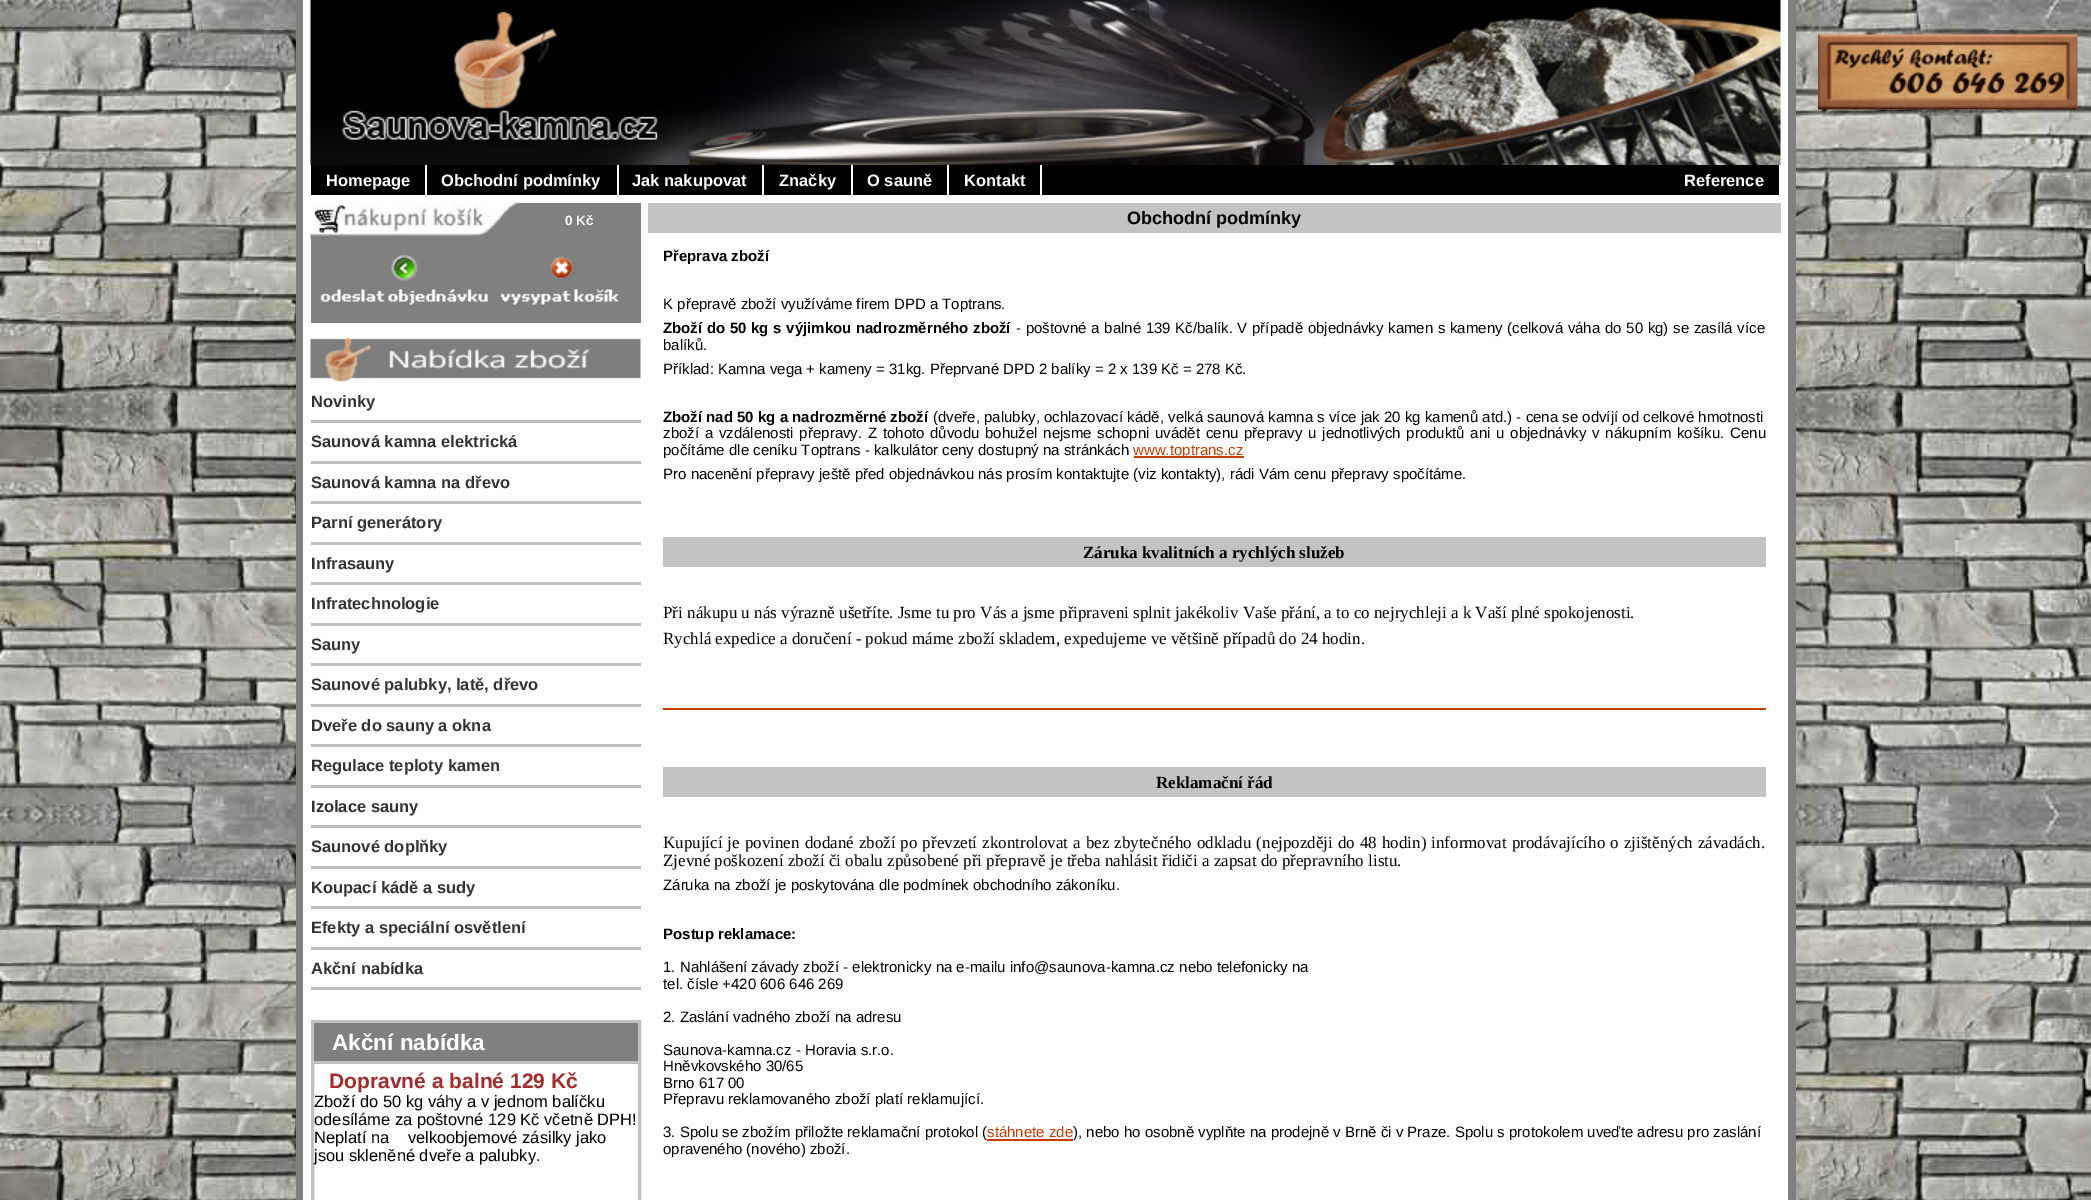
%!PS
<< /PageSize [2091 1200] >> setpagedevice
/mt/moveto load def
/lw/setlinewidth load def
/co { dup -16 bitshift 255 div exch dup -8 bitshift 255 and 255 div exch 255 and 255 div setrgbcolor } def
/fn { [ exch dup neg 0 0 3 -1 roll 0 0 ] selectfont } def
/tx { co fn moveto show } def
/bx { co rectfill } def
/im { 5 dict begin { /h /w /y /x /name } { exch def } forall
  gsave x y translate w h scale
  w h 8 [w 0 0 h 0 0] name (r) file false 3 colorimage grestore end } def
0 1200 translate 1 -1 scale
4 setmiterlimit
0 0 2091 1200 16#FFFFFF bx
(media/1.raw) 0 0 2091 1200 im
303 0 1485 1200 16#FFFFFF bx
1788 0 8 1200 16#808080 bx
296 0 7 1200 16#808080 bx
1780 0 1 165 16#FDF9FA bx
(media/2.raw) 310 0 1471 165 im
(media/3.raw) 341 11 317 129 im
(media/4.raw) 1818 34 260 76 im
311 165 1468 30 16#000000 bx
425 165 2 30 16#FFFFFF bx
617 165 2 30 16#FFFFFF bx
762 165 2 30 16#FFFFFF bx
851 165 2 30 16#FFFFFF bx
947 165 2 30 16#FFFFFF bx
1040 165 2 30 16#FFFFFF bx
311 203 330 120 16#808080 bx
(media/5.raw) 310 202 208 37 im
(media/6.raw) 320 254 168 51 im
(media/7.raw) 500 256 119 49 im
(media/8.raw) 310 337 331 45 im
311 420 330 3 16#C0C0C0 bx
311 461 330 3 16#C0C0C0 bx
311 501 330 3 16#C0C0C0 bx
311 542 330 3 16#C0C0C0 bx
311 582 330 3 16#C0C0C0 bx
311 623 330 3 16#C0C0C0 bx
311 663 330 3 16#C0C0C0 bx
311 704 330 3 16#C0C0C0 bx
311 744 330 3 16#C0C0C0 bx
311 785 330 3 16#C0C0C0 bx
311 825 330 3 16#C0C0C0 bx
311 866 330 3 16#C0C0C0 bx
311 906 330 3 16#C0C0C0 bx
311 947 330 3 16#C0C0C0 bx
311 987 330 3 16#C0C0C0 bx
3 lw
312.5 1021.5 327 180 rectstroke
314 1023 324 38 16#808080 bx
314 1061 324 3 16#C0C0C0 bx
648 203 1133 30 16#C3C3C3 bx
1134 456 110 2 16#C83C00 bx
663 537 1103 30 16#C3C3C3 bx
663 708 1103 2 16#C83C00 bx
663 767 1103 30 16#C3C3C3 bx
(Homepage) 326 186 /LiberationSans-Bold 16.5 16#FFFFFF tx
(Obchodní podmínky) 441 186 /LiberationSans-Bold 16.5 16#FFFFFF tx
(Jak nakupovat) 632 186 /LiberationSans-Bold 16.5 16#FFFFFF tx
(Značky) 779 186 /LiberationSans-Bold 16.5 16#FFFFFF tx
(O sauně) 867 186 /LiberationSans-Bold 16.5 16#FFFFFF tx
(Kontakt) 964 186 /LiberationSans-Bold 16.5 16#FFFFFF tx
(Reference) 1684 186 /LiberationSans-Bold 16.5 16#FFFFFF tx
(0 Kč) 565 225 /LiberationSans-Bold 13.5 16#FDF9FA tx
(Novinky) 311 407 /LiberationSans-Bold 16.5 16#333333 tx
(Saunová kamna elektrická) 311 447 /LiberationSans-Bold 16.5 16#333333 tx
(Saunová kamna na dřevo) 311 488 /LiberationSans-Bold 16.5 16#333333 tx
(Parní generátory) 311 528 /LiberationSans-Bold 16.5 16#333333 tx
(Infrasauny) 311 569 /LiberationSans-Bold 16.5 16#333333 tx
(Infratechnologie) 311 609 /LiberationSans-Bold 16.5 16#333333 tx
(Sauny) 311 650 /LiberationSans-Bold 16.5 16#333333 tx
(Saunové palubky, latě, dřevo) 311 690 /LiberationSans-Bold 16.5 16#333333 tx
(Dveře do sauny a okna) 311 731 /LiberationSans-Bold 16.5 16#333333 tx
(Regulace teploty kamen) 311 771 /LiberationSans-Bold 16.5 16#333333 tx
(Izolace sauny) 311 812 /LiberationSans-Bold 16.5 16#333333 tx
(Saunové doplňky) 311 852 /LiberationSans-Bold 16.5 16#333333 tx
(Koupací kádě a sudy) 311 893 /LiberationSans-Bold 16.5 16#333333 tx
(Efekty a speciální osvětlení) 311 933 /LiberationSans-Bold 16.5 16#333333 tx
(Akční nabídka) 311 974 /LiberationSans-Bold 16.5 16#333333 tx
(Akční nabídka) 332 1050 /LiberationSans-Bold 22.5 16#FFFFFF tx
(Dopravné a balné 129 Kč) 329 1088 /LiberationSans-Bold 21 16#A52A2A tx
(Zboží do 50 kg váhy a v jednom balíčku) 314 1107 /LiberationSans-Regular 16.5 16#000000 tx
(odesíláme za poštovné 129 Kč včetně DPH!) 314 1125 /LiberationSans-Regular 16.5 16#000000 tx
(Neplatí na    velkoobjemové zásilky jako) 314 1143 /LiberationSans-Regular 16.5 16#000000 tx
(jsou skleněné dveře a palubky.) 314 1161 /LiberationSans-Regular 16.5 16#000000 tx
(Obchodní podmínky) 1127 224 /LiberationSans-Bold 18 16#000000 tx
(Přeprava zboží) 663 261 /LiberationSans-Bold 15 16#000000 tx
(K přepravě zboží využíváme firem DPD a Toptrans.) 663 309 /LiberationSans-Regular 15 16#000000 tx
/LiberationSans-Bold 15 fn
663 333 mt .5 0 32 (Zboží do 50 kg s výjimkou nadrozměrného zboží) widthshow
/LiberationSans-Regular 15 fn
1016 333 mt .5 0 32 (- poštovné a balné 139 Kč/balík. V případě objednávky kamen s kameny \(celková váha do 50 kg\) se zasílá více) widthshow
(balíků.) 663 350 /LiberationSans-Regular 15 16#000000 tx
(Příklad: Kamna vega + kameny = 31kg. Přeprvané DPD 2 balíky = 2 x 139 Kč = 278 Kč.) 663 374 /LiberationSans-Regular 15 16#000000 tx
(Zboží nad 50 kg a nadrozměrné zboží) 663 422 /LiberationSans-Bold 15 16#000000 tx
(\(dveře, palubky, ochlazovací kádě, velká saunová kamna s více jak 20 kg kamenů atd.\) - cena se odvíjí od celkové hmotnosti) 933 422 /LiberationSans-Regular 15 16#000000 tx
663 438 mt 1.6 0 32 (zboží a vzdálenosti přepravy. Z tohoto důvodu bohužel nejsme schopni uvádět cenu přepravy u jednotlivých produktů ani u objednávky v nákupním košíku. Cenu) widthshow
(počítáme dle ceníku Toptrans - kalkulátor ceny dostupný na stránkách) 663 455 /LiberationSans-Regular 15 16#000000 tx
(www.toptrans.cz) 1133 455 /LiberationSans-Regular 15 16#C83C00 tx
(Pro nacenění přepravy ještě před objednávkou nás prosím kontaktujte \(viz kontakty\), rádi Vám cenu přepravy spočítáme.) 663 479 /LiberationSans-Regular 15 16#000000 tx
(Záruka kvalitních a rychlých služeb) 1083 558 /LiberationSerif-Bold 17 16#000000 tx
(Při nákupu u nás výrazně ušetříte. Jsme tu pro Vás a jsme připraveni splnit jakékoliv Vaše přání, a to co nejrychleji a k Vaší plné spokojenosti.) 663 618 /LiberationSerif-Regular 17 16#000000 tx
(Rychlá expedice a doručení - pokud máme zboží skladem, expedujeme ve většině případů do 24 hodin.) 663 644 /LiberationSerif-Regular 17 16#000000 tx
(Reklamační řád) 1156 788 /LiberationSerif-Bold 17 16#000000 tx
/LiberationSerif-Regular 17 fn
663 848 mt .75 0 32 (Kupující je povinen dodané zboží po převzetí zkontrolovat a bez zbytečného odkladu \(nejpozději do 48 hodin\) informovat prodávajícího o zjištěných závadách.) widthshow
(Zjevné poškození zboží či obalu způsobené při přepravě je třeba nahlásit řidiči a zapsat do přepravního listu.) 663 866 /LiberationSerif-Regular 17 16#000000 tx
(Záruka na zboží je poskytována dle podmínek obchodního zákoníku.) 663 890 /LiberationSans-Regular 15 16#000000 tx
(Postup reklamace:) 663 939 /LiberationSans-Bold 15 16#000000 tx
(1. Nahlášení závady zboží - elektronicky na e-mailu info@saunova-kamna.cz nebo telefonicky na) 663 972 /LiberationSans-Regular 15 16#000000 tx
(tel. čísle +420 606 646 269) 663 989 /LiberationSans-Regular 15 16#000000 tx
(2. Zaslání vadného zboží na adresu) 663 1022 /LiberationSans-Regular 15 16#000000 tx
(Saunova-kamna.cz - Horavia s.r.o.) 663 1055 /LiberationSans-Regular 15 16#000000 tx
(Hněvkovského 30/65) 663 1071 /LiberationSans-Regular 15 16#000000 tx
(Brno 617 00) 663 1088 /LiberationSans-Regular 15 16#000000 tx
(Přepravu reklamovaného zboží platí reklamující.) 663 1104 /LiberationSans-Regular 15 16#000000 tx
(3. Spolu se zbožím přiložte reklamační protokol \() 663 1137 /LiberationSans-Regular 15 16#000000 tx
(stáhnete zde) 987 1137 /LiberationSans-Regular 15 16#C83C00 tx
987 1139 86 2 16#C83C00 bx
(\), nebo ho osobně vyplňte na prodejně v Brně či v Praze. Spolu s protokolem uveďte adresu pro zaslání) 1073 1137 /LiberationSans-Regular 15 16#000000 tx
(opraveného \(nového\) zboží.) 663 1154 /LiberationSans-Regular 15 16#000000 tx
showpage
